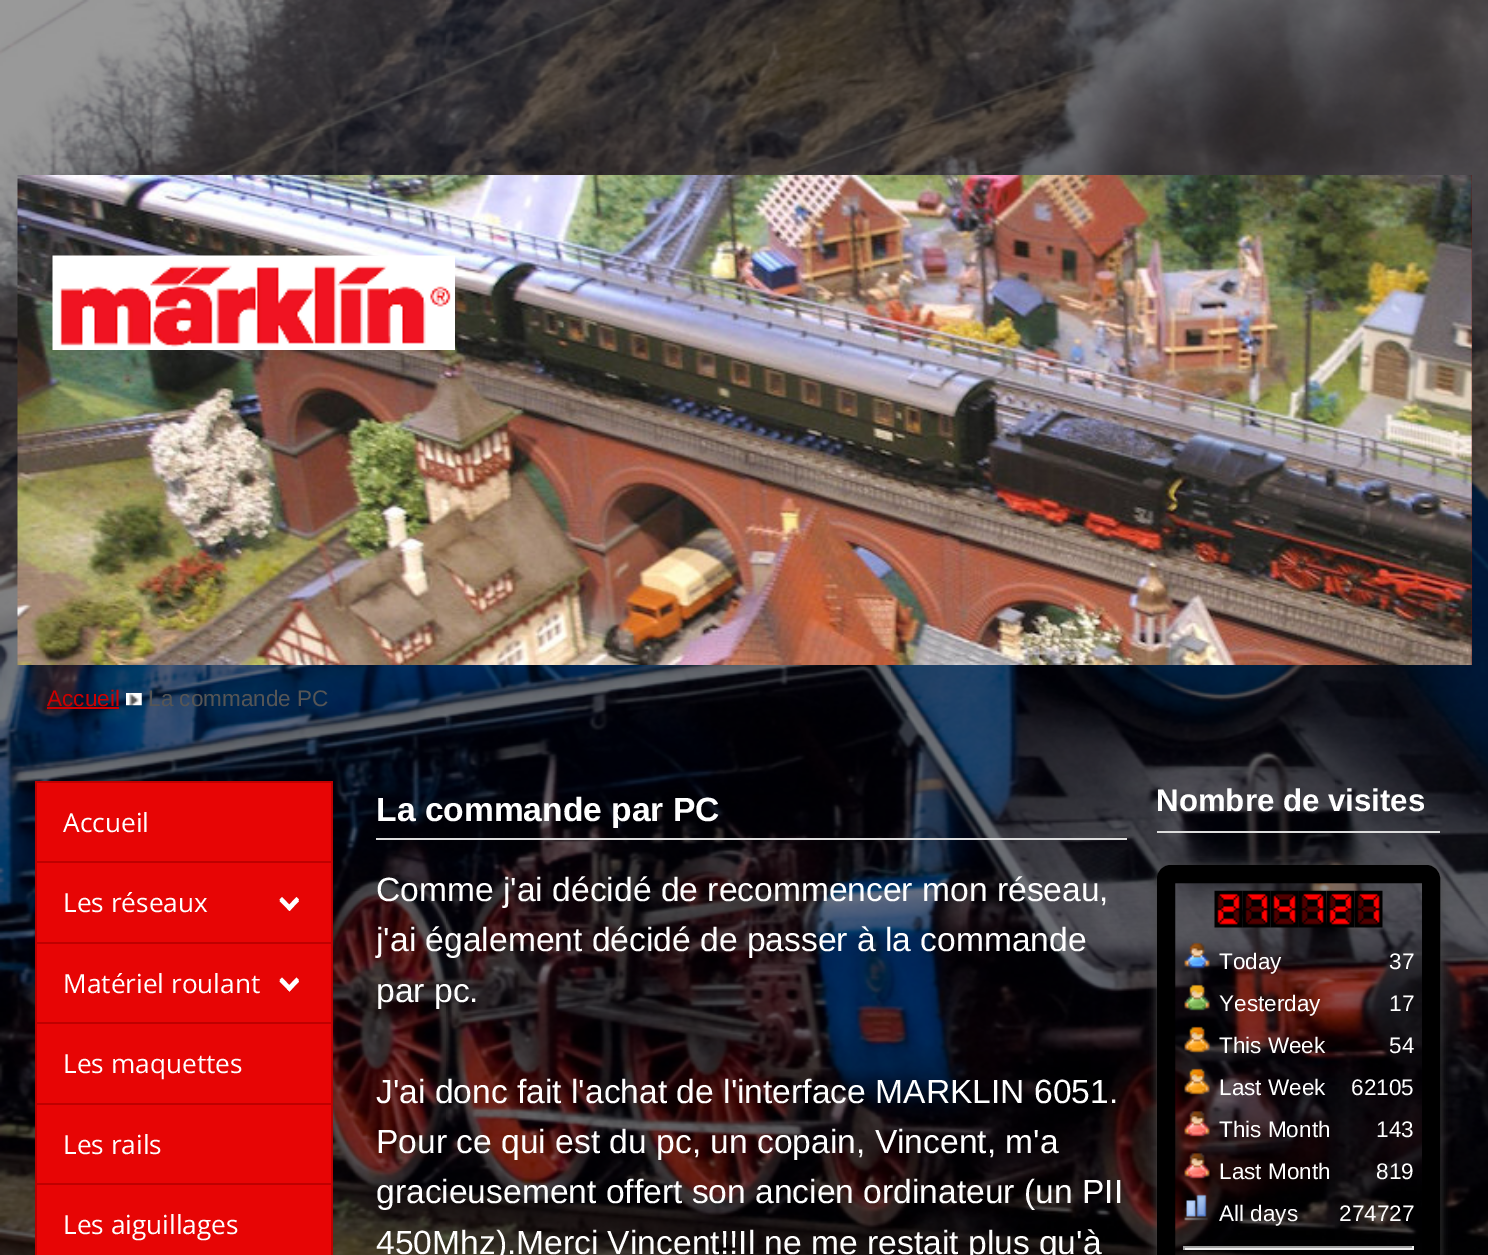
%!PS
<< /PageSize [1488 1255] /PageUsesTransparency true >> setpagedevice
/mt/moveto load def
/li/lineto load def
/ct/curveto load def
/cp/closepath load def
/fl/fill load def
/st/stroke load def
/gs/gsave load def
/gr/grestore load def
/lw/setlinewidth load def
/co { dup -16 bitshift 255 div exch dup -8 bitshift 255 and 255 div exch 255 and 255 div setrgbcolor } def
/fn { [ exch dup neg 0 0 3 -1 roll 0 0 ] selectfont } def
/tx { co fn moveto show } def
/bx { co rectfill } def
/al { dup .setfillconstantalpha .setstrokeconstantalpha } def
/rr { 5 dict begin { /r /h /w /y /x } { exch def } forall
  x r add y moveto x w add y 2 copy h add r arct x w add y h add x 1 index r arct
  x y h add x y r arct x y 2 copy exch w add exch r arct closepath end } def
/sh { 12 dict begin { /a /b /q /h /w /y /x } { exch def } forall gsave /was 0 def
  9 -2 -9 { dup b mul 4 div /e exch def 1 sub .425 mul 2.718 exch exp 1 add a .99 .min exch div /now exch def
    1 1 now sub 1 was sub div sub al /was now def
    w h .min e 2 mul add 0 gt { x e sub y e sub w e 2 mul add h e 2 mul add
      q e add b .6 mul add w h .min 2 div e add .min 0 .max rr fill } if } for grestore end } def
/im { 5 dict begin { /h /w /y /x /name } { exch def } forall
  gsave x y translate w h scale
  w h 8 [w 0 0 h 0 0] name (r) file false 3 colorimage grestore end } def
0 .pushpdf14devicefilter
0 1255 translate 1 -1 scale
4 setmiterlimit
0 0 1488 1255 16#FFFFFF bx
(media/1.raw) 0 0 1488 1255 im
(media/2.raw) 17 175 1455 490 im
(media/3.raw) 52 255 403 95 im
47 707 72 2 16#CC0000 bx
(media/4.raw) 126 693 16 13 im
37 783 294 78 16#E70505 bx
35 781 298 2 16#BF0000 bx
331 781 2 80 16#BF0000 bx
35 781 2 80 16#BF0000 bx
37 863 294 79 16#E70505 bx
35 861 298 2 16#BF0000 bx
331 861 2 81 16#BF0000 bx
35 861 2 81 16#BF0000 bx
16#FFFFFF co
289.5 911 mt 279.5 901 li 282 898.5 li 291.5 908.5 li cp fl
289.5 911 mt 287 908.5 li 296.5 898.5 li 299 901 li cp fl
289.5 909 mt 279.5 899.5 li 282 897 li 291.5 907 li cp fl
289.5 909 mt 287 907 li 296.5 897 li 299 899.5 li cp fl
37 944 294 78 16#E70505 bx
35 942 298 2 16#BF0000 bx
331 942 2 80 16#BF0000 bx
35 942 2 80 16#BF0000 bx
16#FFFFFF co
289.5 991.5 mt 279.5 981.5 li 282 979 li 291.5 989 li cp fl
289.5 991.5 mt 287 989 li 296.5 979 li 299 981.5 li cp fl
289.5 989.5 mt 279.5 980 li 282 977.5 li 291.5 987.5 li cp fl
289.5 989.5 mt 287 987.5 li 296.5 977.5 li 299 980 li cp fl
37 1024 294 79 16#E70505 bx
35 1022 298 2 16#BF0000 bx
331 1022 2 81 16#BF0000 bx
35 1022 2 81 16#BF0000 bx
37 1105 294 78 16#E70505 bx
35 1103 298 2 16#BF0000 bx
331 1103 2 80 16#BF0000 bx
35 1103 2 80 16#BF0000 bx
37 1185 294 70 16#E70505 bx
35 1183 298 2 16#BF0000 bx
331 1183 2 72 16#BF0000 bx
35 1183 2 72 16#BF0000 bx
376 838 751 2 16#DDDDDD bx
1157 831 283 2 16#DDDDDD bx
gs
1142 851 mt 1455 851 li 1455 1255 li 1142 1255 li cp 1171 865 mt 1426 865 li 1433.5 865 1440 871.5 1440 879 ct 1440 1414 li 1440 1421.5 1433.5 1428 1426 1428 ct 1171 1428 li 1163.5 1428 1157 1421.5 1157 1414 ct 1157 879 li 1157 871.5 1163.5 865 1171 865 ct cp eoclip newpath
16#4A4A4A co
1157 866 283 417 14 4.5 1 sh
gr
16#000000 co
18 lw
1166 874 265 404 5 rr st
(media/5.raw) 1214 890 29 38 im
(media/6.raw) 1242 890 29 38 im
(media/7.raw) 1270 890 29 38 im
(media/8.raw) 1298 890 29 38 im
(media/9.raw) 1326 890 29 38 im
(media/10.raw) 1354 890 29 38 im
(media/11.raw) 1184 942 26 27 im
(media/12.raw) 1184 984 26 27 im
(media/13.raw) 1184 1026 26 27 im
(media/14.raw) 1184 1068 26 27 im
(media/15.raw) 1184 1110 26 27 im
(media/16.raw) 1184 1152 26 27 im
(media/17.raw) 1184 1194 24 27 im
1183 1246 231 2 16#9F9F9F bx
1412 1246 2 4 16#EEEEEE bx
1183 1248 231 2 16#EEEEEE bx
1183 1246 2 4 16#9F9F9F bx
(Accueil) 47 706 /LiberationSans-Regular 22.5 16#CC0000 tx
(La commande PC) 148 706 /LiberationSans-Regular 22.5 16#555555 tx
(Accueil) 63 832 /OpenSans-Regular 26.25 16#FFFFFF tx
(Les réseaux) 63 912 /OpenSans-Regular 26.25 16#FFFFFF tx
(Matériel roulant) 63 993 /OpenSans-Regular 26.25 16#FFFFFF tx
(Les maquettes) 63 1073 /OpenSans-Regular 26.25 16#FFFFFF tx
(Les rails) 63 1154 /OpenSans-Regular 26.25 16#FFFFFF tx
(Les aiguillages) 63 1234 /OpenSans-Regular 26.25 16#FFFFFF tx
(La commande par PC) 376 821 /LiberationSans-Bold 33.6 16#FFFFFF tx
(Comme j'ai décidé de recommencer mon réseau,) 376 901 /LiberationSans-Regular 33.6 16#FFFFFF tx
(j'ai également décidé de passer à la commande) 376 951 /LiberationSans-Regular 33.6 16#FFFFFF tx
(par pc.) 376 1002 /LiberationSans-Regular 33.6 16#FFFFFF tx
(J'ai donc fait l'achat de l'interface MARKLIN 6051.) 376 1103 /LiberationSans-Regular 33.6 16#FFFFFF tx
(Pour ce qui est du pc, un copain, Vincent, m'a) 376 1153 /LiberationSans-Regular 33.6 16#FFFFFF tx
(gracieusement offert son ancien ordinateur \(un PII) 376 1203 /LiberationSans-Regular 33.6 16#FFFFFF tx
(450Mhz\).Merci Vincent!!Il ne me restait plus qu'à) 376 1254 /LiberationSans-Regular 33.6 16#FFFFFF tx
(Nombre de visites) 1156 811 /LiberationSans-Bold 31.25 16#FFFFFF tx
(Today) 1219 969 /LiberationSans-Regular 22.5 16#FFFFFF tx
(Yesterday) 1219 1011 /LiberationSans-Regular 22.5 16#FFFFFF tx
(This Week) 1219 1053 /LiberationSans-Regular 22.5 16#FFFFFF tx
(Last Week) 1219 1095 /LiberationSans-Regular 22.5 16#FFFFFF tx
(This Month) 1219 1137 /LiberationSans-Regular 22.5 16#FFFFFF tx
(Last Month) 1219 1179 /LiberationSans-Regular 22.5 16#FFFFFF tx
(All days) 1219 1221 /LiberationSans-Regular 22.5 16#FFFFFF tx
(37) 1389 969 /LiberationSans-Regular 22.5 16#FFFFFF tx
(17) 1389 1011 /LiberationSans-Regular 22.5 16#FFFFFF tx
(54) 1389 1053 /LiberationSans-Regular 22.5 16#FFFFFF tx
(62105) 1351 1095 /LiberationSans-Regular 22.5 16#FFFFFF tx
(143) 1376 1137 /LiberationSans-Regular 22.5 16#FFFFFF tx
(819) 1376 1179 /LiberationSans-Regular 22.5 16#FFFFFF tx
(274727) 1339 1221 /LiberationSans-Regular 22.5 16#FFFFFF tx
.poppdf14devicefilter showpage
